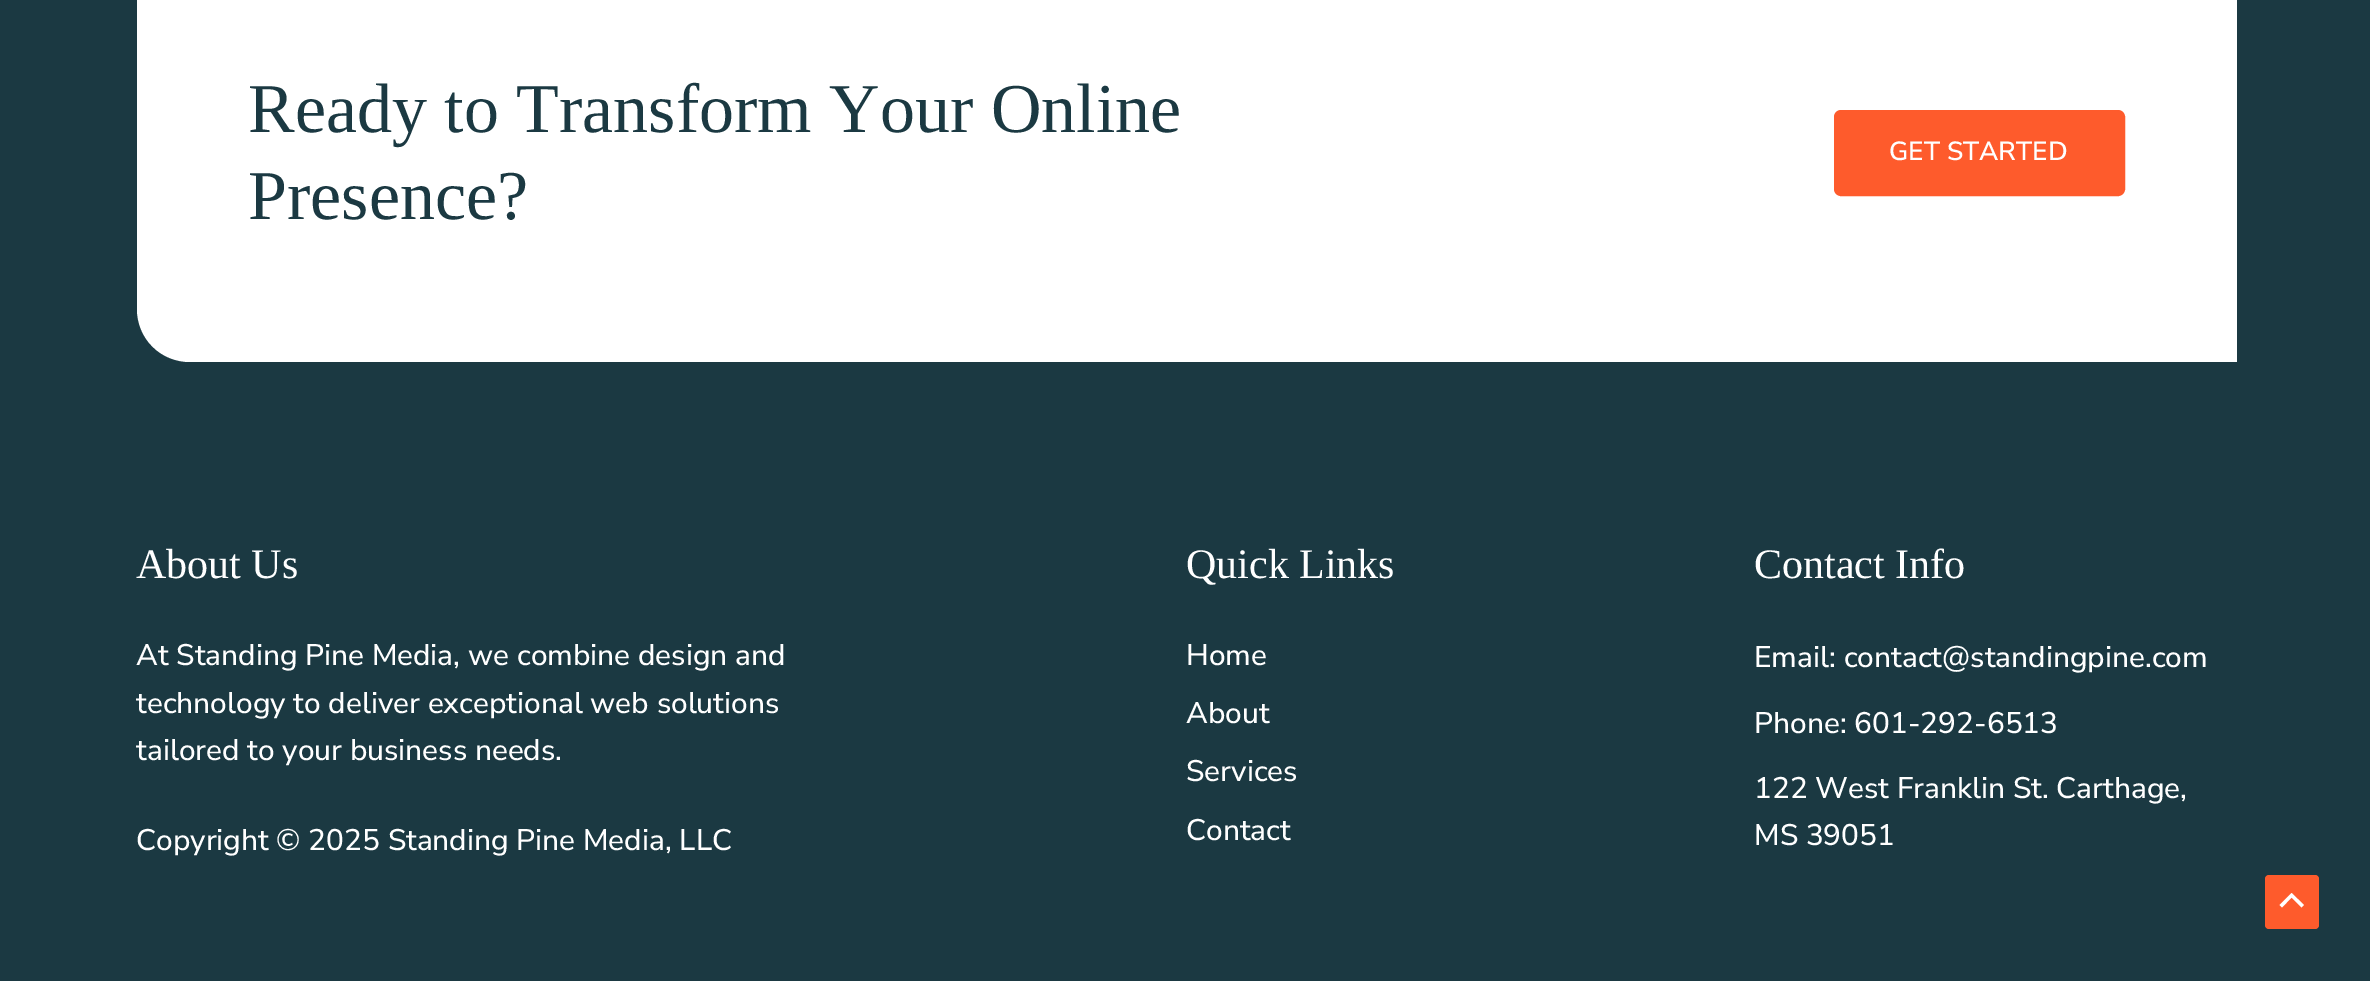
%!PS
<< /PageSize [2370 981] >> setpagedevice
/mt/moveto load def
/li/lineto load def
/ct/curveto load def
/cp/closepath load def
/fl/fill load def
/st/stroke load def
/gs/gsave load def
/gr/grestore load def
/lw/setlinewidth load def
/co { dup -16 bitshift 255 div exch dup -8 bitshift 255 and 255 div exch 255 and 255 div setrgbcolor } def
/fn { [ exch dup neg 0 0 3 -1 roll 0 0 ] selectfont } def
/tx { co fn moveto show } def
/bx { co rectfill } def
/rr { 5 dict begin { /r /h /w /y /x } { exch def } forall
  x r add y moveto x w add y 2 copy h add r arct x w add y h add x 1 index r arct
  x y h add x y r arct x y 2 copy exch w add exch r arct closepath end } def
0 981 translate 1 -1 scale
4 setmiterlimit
0 0 2370 981 16#1B3942 bx
16#FFFFFF co
137 -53 mt 2184 -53 li 2213.5 -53 2237 -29.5 2237 0 ct 2237 362 li 190 362 li 160.5 362 137 338.5 137 309 ct cp fl
16#FE5B2C co
1836 112 287 82 5 rr gs fl gr
4 lw
st
2265 875 54 54 4 rr fl
16#FFFFFF co
2304 905 mt 2291.5 893 li 2279.5 905 li 2282 907.5 li 2291.5 897.5 li 2301.5 907.5 li cp fl
(Ready to Transform Your Online) 248 132 /LiberationSerif-Regular 70 16#1B3942 tx
(Presence?) 248 219 /LiberationSerif-Regular 70 16#1B3942 tx
(GET STARTED) 1889 160 /NunitoSans-SemiBold 26.25 16#FFFFFF tx
(About Us) 136 578 /LiberationSerif-Regular 42 16#FFFFFF tx
(At Standing Pine Media, we combine design and) 136 665 /NunitoSans-Medium 29.75 16#FFFFFF tx
(technology to deliver exceptional web solutions) 136 713 /NunitoSans-Medium 29.75 16#FFFFFF tx
(tailored to your business needs.) 136 760 /NunitoSans-Medium 29.75 16#FFFFFF tx
(Copyright © 2025 Standing Pine Media, LLC) 136 850 /NunitoSans-Medium 29.75 16#FFFFFF tx
(Quick Links) 1186 578 /LiberationSerif-Regular 42 16#FFFFFF tx
(Home) 1186 665 /NunitoSans-Medium 29.75 16#FFFFFF tx
(About) 1186 723 /NunitoSans-Medium 29.75 16#FFFFFF tx
(Services) 1186 781 /NunitoSans-Medium 29.75 16#FFFFFF tx
(Contact) 1186 840 /NunitoSans-Medium 29.75 16#FFFFFF tx
(Contact Info) 1754 578 /LiberationSerif-Regular 42 16#FFFFFF tx
(Email: contact@standingpine.com) 1754 667 /NunitoSans-Medium 29.75 16#FFFFFF tx
(Phone: 601-292-6513) 1754 733 /NunitoSans-Medium 29.75 16#FFFFFF tx
(122 West Franklin St. Carthage,) 1754 798 /NunitoSans-Medium 29.75 16#FFFFFF tx
(MS 39051) 1754 845 /NunitoSans-Medium 29.75 16#FFFFFF tx
showpage
